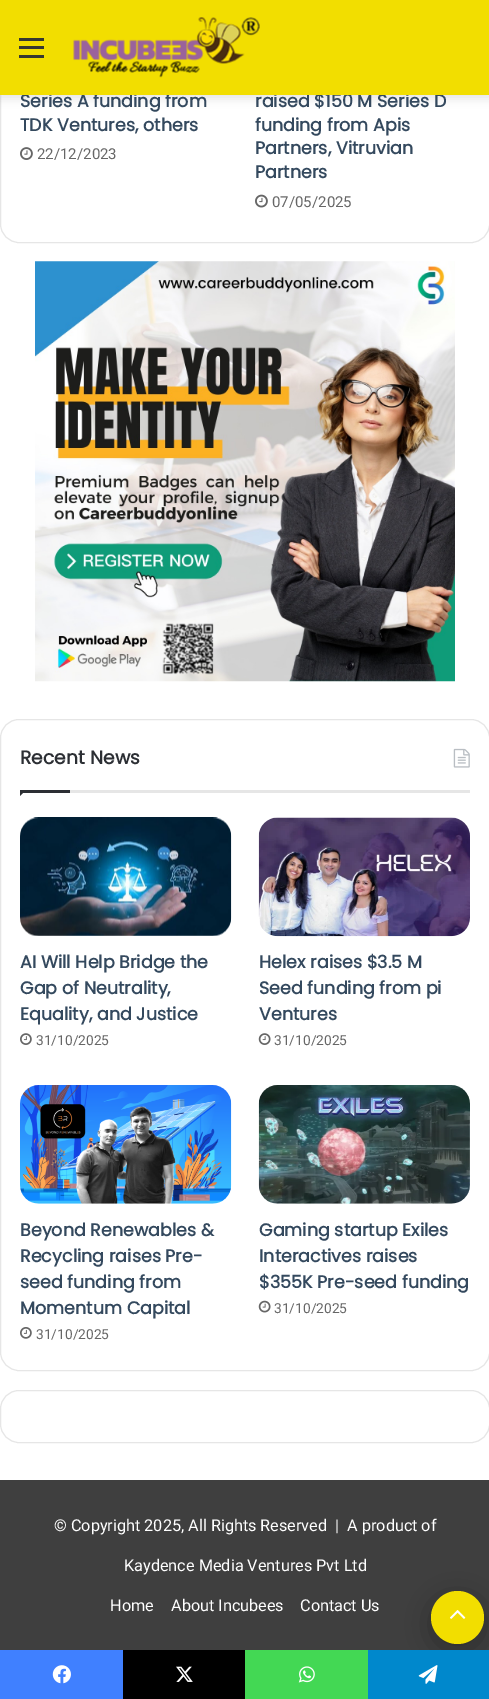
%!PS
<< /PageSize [489 1699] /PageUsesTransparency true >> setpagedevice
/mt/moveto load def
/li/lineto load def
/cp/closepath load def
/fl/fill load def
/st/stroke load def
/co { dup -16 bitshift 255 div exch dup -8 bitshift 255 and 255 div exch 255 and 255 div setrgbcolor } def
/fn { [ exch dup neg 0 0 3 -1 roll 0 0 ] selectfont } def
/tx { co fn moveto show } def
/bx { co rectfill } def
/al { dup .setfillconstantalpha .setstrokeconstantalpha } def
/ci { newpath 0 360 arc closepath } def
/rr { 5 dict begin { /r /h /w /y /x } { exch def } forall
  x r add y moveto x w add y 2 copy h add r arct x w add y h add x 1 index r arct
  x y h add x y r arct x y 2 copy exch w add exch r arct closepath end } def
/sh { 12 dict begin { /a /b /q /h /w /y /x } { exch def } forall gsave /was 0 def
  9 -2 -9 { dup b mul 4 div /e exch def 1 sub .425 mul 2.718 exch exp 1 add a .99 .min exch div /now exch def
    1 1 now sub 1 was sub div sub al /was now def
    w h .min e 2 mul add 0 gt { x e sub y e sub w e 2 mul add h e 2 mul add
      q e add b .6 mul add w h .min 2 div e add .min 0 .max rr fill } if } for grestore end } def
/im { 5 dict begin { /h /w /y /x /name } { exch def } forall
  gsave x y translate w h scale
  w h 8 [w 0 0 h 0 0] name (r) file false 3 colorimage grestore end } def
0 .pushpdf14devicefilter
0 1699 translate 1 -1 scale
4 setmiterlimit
0 0 489 1699 16#FFFFFF bx
16#E6E6E6 co
.5 -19.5 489 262 18.5 rr st
16#000000 co
0 4 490 95 0 4.5 .1 sh
(media/2.raw) 20 147 13 13 im
(media/3.raw) 255 194 13 14 im
(media/4.raw) 35 261 420 421 im
16#E6E6E6 co
.5 719.5 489 651 18.5 rr st
70 790 400 3 16#E6E6E6 bx
(media/5.raw) 453 748 17 20 im
16#2C2F34 co
20 790 mt 26 790 li 20 796 li cp fl
20 790 50 3 16#2C2F34 bx
(media/6.raw) 20 817 212 119 im
(media/7.raw) 20 1033 12 12 im
(media/8.raw) 258 817 212 120 im
(media/9.raw) 258 1033 13 12 im
(media/10.raw) 20 1085 212 119 im
(media/11.raw) 20 1327 12 12 im
(media/12.raw) 258 1085 212 119 im
(media/13.raw) 258 1300 13 13 im
16#E6E6E6 co
.5 1390.5 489 52 18.5 rr st
0 1480 489 170 16#3F3F3F bx
16#000000 co
431 1598 53 52 26 15.5 .3 sh
16#F2DE00 co
457.5 1617.5 26.5 ci fl
(media/14.raw) 450 1610 16 9 im
0 1650 123 49 16#4080FF bx
(media/15.raw) 52 1665 19 19 im
123 1650 122 49 16#000000 bx
(media/16.raw) 176 1666 17 16 im
245 1650 123 49 16#43D854 bx
(media/17.raw) 298 1666 17 17 im
368 1650 121 49 16#0088CC bx
(media/18.raw) 418 1665 20 19 im
(Series A funding from) 20 107 /Poppins-Bold 17.5 16#34495E tx
(TDK Ventures, others) 20 131 /Poppins-Bold 17.5 16#34495E tx
(22/12/2023) 37 159 /Roboto-Regular 15 16#666666 tx
(raised $150 M Series D) 255 107 /Poppins-Bold 17.5 16#34495E tx
0 0 489 95 16#F2DE00 bx
19 55 25 3 16#363831 bx
19 38 25 3 16#363831 bx
19 46 25 3 16#363831 bx
(media/1.raw) 73 17 187 61 im
(funding from Apis) 255 131 /Poppins-Bold 17.5 16#34495E tx
(Partners, Vitruvian) 255 154 /Poppins-Bold 17.5 16#34495E tx
(Partners) 255 178 /Poppins-Bold 17.5 16#34495E tx
(07/05/2025) 272 207 /Roboto-Regular 15 16#666666 tx
(Recent News) 20 764 /Poppins-Bold 18.75 16#2C2F34 tx
(AI Will Help Bridge the) 20 968 /Poppins-Bold 17.5 16#34495E tx
(Gap of Neutrality,) 20 994 /Poppins-Bold 17.5 16#34495E tx
(Equality, and Justice) 20 1020 /Poppins-Bold 17.5 16#34495E tx
(31/10/2025) 36 1045 /Roboto-Regular 13.75 16#666666 tx
(Helex raises $3.5 M) 259 968 /Poppins-Bold 17.5 16#34495E tx
(Seed funding from pi) 259 994 /Poppins-Bold 17.5 16#34495E tx
(Ventures) 259 1020 /Poppins-Bold 17.5 16#34495E tx
(31/10/2025) 274 1045 /Roboto-Regular 13.75 16#666666 tx
(Beyond Renewables &) 20 1236 /Poppins-Bold 17.5 16#34495E tx
(Recycling raises Pre-) 20 1262 /Poppins-Bold 17.5 16#34495E tx
(seed funding from) 20 1288 /Poppins-Bold 17.5 16#34495E tx
(Momentum Capital) 20 1314 /Poppins-Bold 17.5 16#34495E tx
(31/10/2025) 36 1339 /Roboto-Regular 13.75 16#666666 tx
(Gaming startup Exiles) 259 1236 /Poppins-Bold 17.5 16#34495E tx
(Interactives raises) 259 1262 /Poppins-Bold 17.5 16#34495E tx
($355K Pre-seed funding) 259 1288 /Poppins-Bold 17.5 16#34495E tx
(31/10/2025) 274 1313 /Roboto-Regular 13.75 16#666666 tx
(© Copyright 2025, All Rights Reserved  |) 54 1531 /Roboto-Regular 16.25 16#FFFFFF tx
(A product of) 347 1531 /Roboto-Regular 16.25 16#FFFFFF tx
(Kaydence Media Ventures Pvt Ltd) 124 1571 /Roboto-Regular 16.25 16#FFFFFF tx
(Home) 110 1611 /Roboto-Regular 16.25 16#FFFFFF tx
(About Incubees) 171 1611 /Roboto-Regular 16.25 16#FFFFFF tx
(Contact Us) 300 1611 /Roboto-Regular 16.25 16#FFFFFF tx
.poppdf14devicefilter showpage
